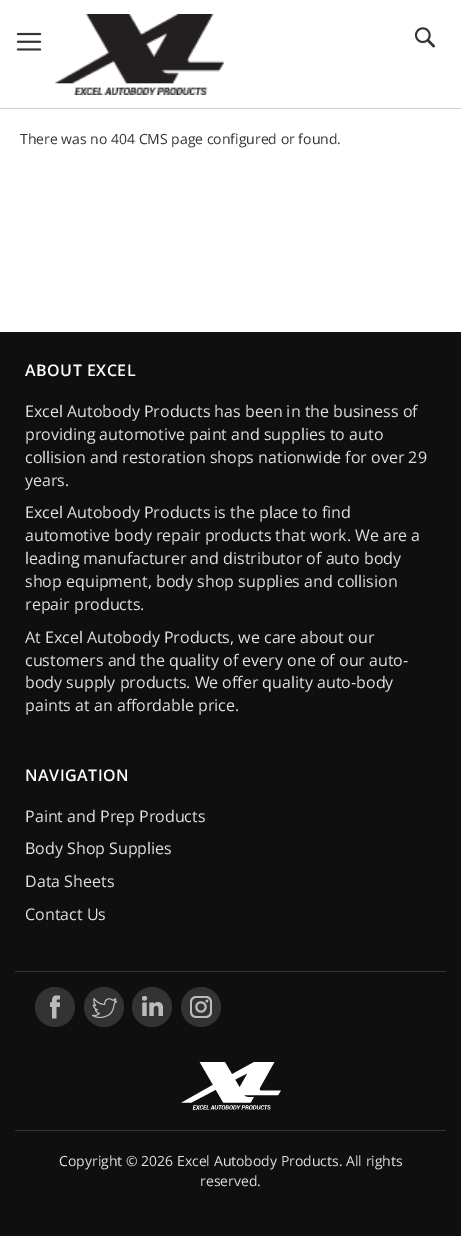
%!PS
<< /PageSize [461 1236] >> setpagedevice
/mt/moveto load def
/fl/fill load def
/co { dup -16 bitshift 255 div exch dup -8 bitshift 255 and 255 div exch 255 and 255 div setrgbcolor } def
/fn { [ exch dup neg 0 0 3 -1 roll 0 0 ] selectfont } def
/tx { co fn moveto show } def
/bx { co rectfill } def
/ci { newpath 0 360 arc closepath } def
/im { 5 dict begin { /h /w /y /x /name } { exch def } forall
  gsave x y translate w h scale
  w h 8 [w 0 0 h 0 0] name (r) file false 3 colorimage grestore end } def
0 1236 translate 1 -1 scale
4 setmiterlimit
0 0 461 1236 16#FFFFFF bx
0 108 461 1 16#D1D1D1 bx
(media/1.raw) 16 32 26 19 im
(media/2.raw) 55 14 169 81 im
(media/3.raw) 414 27 22 21 im
0 332 461 904 16#0F0F0F bx
15 971 431 1 16#333333 bx
15 1130 431 1 16#333333 bx
55 1007 20 ci fl
(media/4.raw) 50 995 10 24 im
104 1007 20 ci fl
(media/5.raw) 92 998 25 20 im
152 1007 20 ci fl
(media/6.raw) 142 996 21 20 im
201 1007 20 ci fl
(media/7.raw) 190 996 22 22 im
(media/8.raw) 181 1062 100 48 im
(There was no 404 CMS page configured or found.) 20 144 /OpenSans-Regular 14 16#333333 tx
/OpenSans-SemiBold 16 fn
16#FFFFFF co
25 376 mt .5 0 (ABOUT EXCEL) ashow
(Excel Autobody Products has been in the business of) 25 417 /OpenSans-Regular 16 16#E2E2E2 tx
(providing automotive paint and supplies to auto) 25 440 /OpenSans-Regular 16 16#E2E2E2 tx
(collision and restoration shops nationwide for over 29) 25 463 /OpenSans-Regular 16 16#E2E2E2 tx
(years.) 25 486 /OpenSans-Regular 16 16#E2E2E2 tx
(Excel Autobody Products is the place to find) 25 518 /OpenSans-Regular 16 16#E2E2E2 tx
(automotive body repair products that work. We are a) 25 541 /OpenSans-Regular 16 16#E2E2E2 tx
(leading manufacturer and distributor of auto body) 25 564 /OpenSans-Regular 16 16#E2E2E2 tx
(shop equipment, body shop supplies and collision) 25 587 /OpenSans-Regular 16 16#E2E2E2 tx
(repair products.) 25 610 /OpenSans-Regular 16 16#E2E2E2 tx
(At Excel Autobody Products, we care about our) 25 643 /OpenSans-Regular 16 16#E2E2E2 tx
(customers and the quality of every one of our auto-) 25 666 /OpenSans-Regular 16 16#E2E2E2 tx
(body supply products. We offer quality auto-body) 25 688 /OpenSans-Regular 16 16#E2E2E2 tx
(paints at an affordable price.) 25 711 /OpenSans-Regular 16 16#E2E2E2 tx
/OpenSans-SemiBold 16 fn
16#FFFFFF co
25 781 mt .5 0 (NAVIGATION) ashow
(Paint and Prep Products) 25 822 /OpenSans-Regular 16 16#E2E2E2 tx
(Body Shop Supplies) 25 854 /OpenSans-Regular 16 16#E2E2E2 tx
(Data Sheets) 25 887 /OpenSans-Regular 16 16#E2E2E2 tx
(Contact Us) 25 920 /OpenSans-Regular 16 16#E2E2E2 tx
(Copyright © 2026 Excel Autobody Products. All rights) 59 1166 /OpenSans-Regular 14 16#E2E2E2 tx
(reserved.) 200 1186 /OpenSans-Regular 14 16#E2E2E2 tx
showpage
